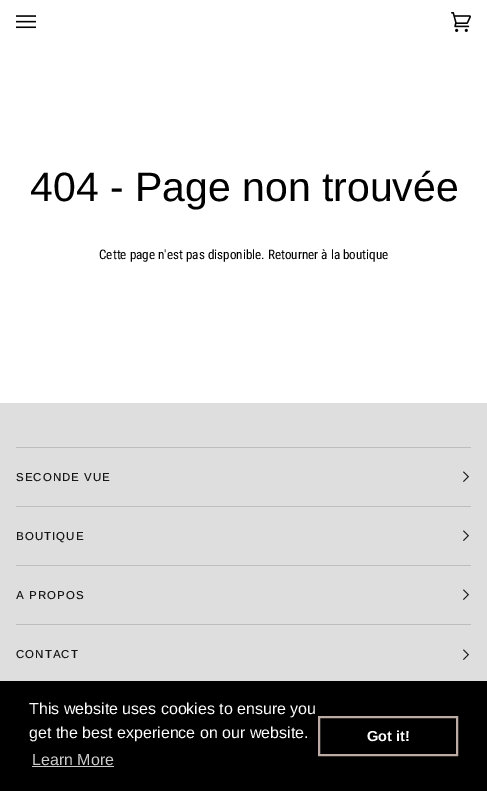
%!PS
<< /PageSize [487 791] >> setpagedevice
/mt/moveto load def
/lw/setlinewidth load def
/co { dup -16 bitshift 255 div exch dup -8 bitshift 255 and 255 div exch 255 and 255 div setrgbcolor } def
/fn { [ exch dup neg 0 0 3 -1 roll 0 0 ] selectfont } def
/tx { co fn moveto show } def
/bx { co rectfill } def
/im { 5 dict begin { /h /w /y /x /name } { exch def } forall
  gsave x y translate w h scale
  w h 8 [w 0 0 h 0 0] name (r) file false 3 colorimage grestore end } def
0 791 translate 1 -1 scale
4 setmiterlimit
0 0 487 791 16#FFFFFF bx
(media/1.raw) 16 15 20 14 im
(media/2.raw) 451 12 20 20 im
0 403 487 278 16#DFDEDE bx
16 447 455 1 16#BEBDBD bx
16 506 455 1 16#BEBDBD bx
(media/3.raw) 463 471 6 11 im
16 565 455 1 16#BEBDBD bx
(media/3.raw) 463 530 6 11 im
16 624 455 1 16#BEBDBD bx
(media/3.raw) 463 589 6 11 im
(media/3.raw) 463 649 6 11 im
0 681 487 110 16#000000 bx
32 766 82 1 16#CCCCCC bx
16#BCAAA4 co
2 lw
319 717 138 38 rectstroke
(404 - Page non trouvée) 30 201 /Arimo-Regular 41 16#000000 tx
(Cette page n'est pas disponible. Retourner à la boutique) 99 259 /RobotoCondensed-Regular 13.15 16#000000 tx
/Arimo-Medium 11.5 fn
16#161616 co
16 481 mt 1 0 (SECONDE VUE) ashow
16 540 mt 1 0 (BOUTIQUE) ashow
16 599 mt 1 0 (A PROPOS) ashow
16 658 mt 1 0 (CONTACT) ashow
(This website uses cookies to ensure you) 29 714 /LiberationSans-Regular 16 16#FFFFFF tx
(get the best experience on our website.) 29 738 /LiberationSans-Regular 16 16#FFFFFF tx
(Learn More) 32 765 /LiberationSans-Regular 16 16#CCCCCC tx
(Got it!) 367 741 /LiberationSans-Bold 14.5 16#FFFFFF tx
showpage
